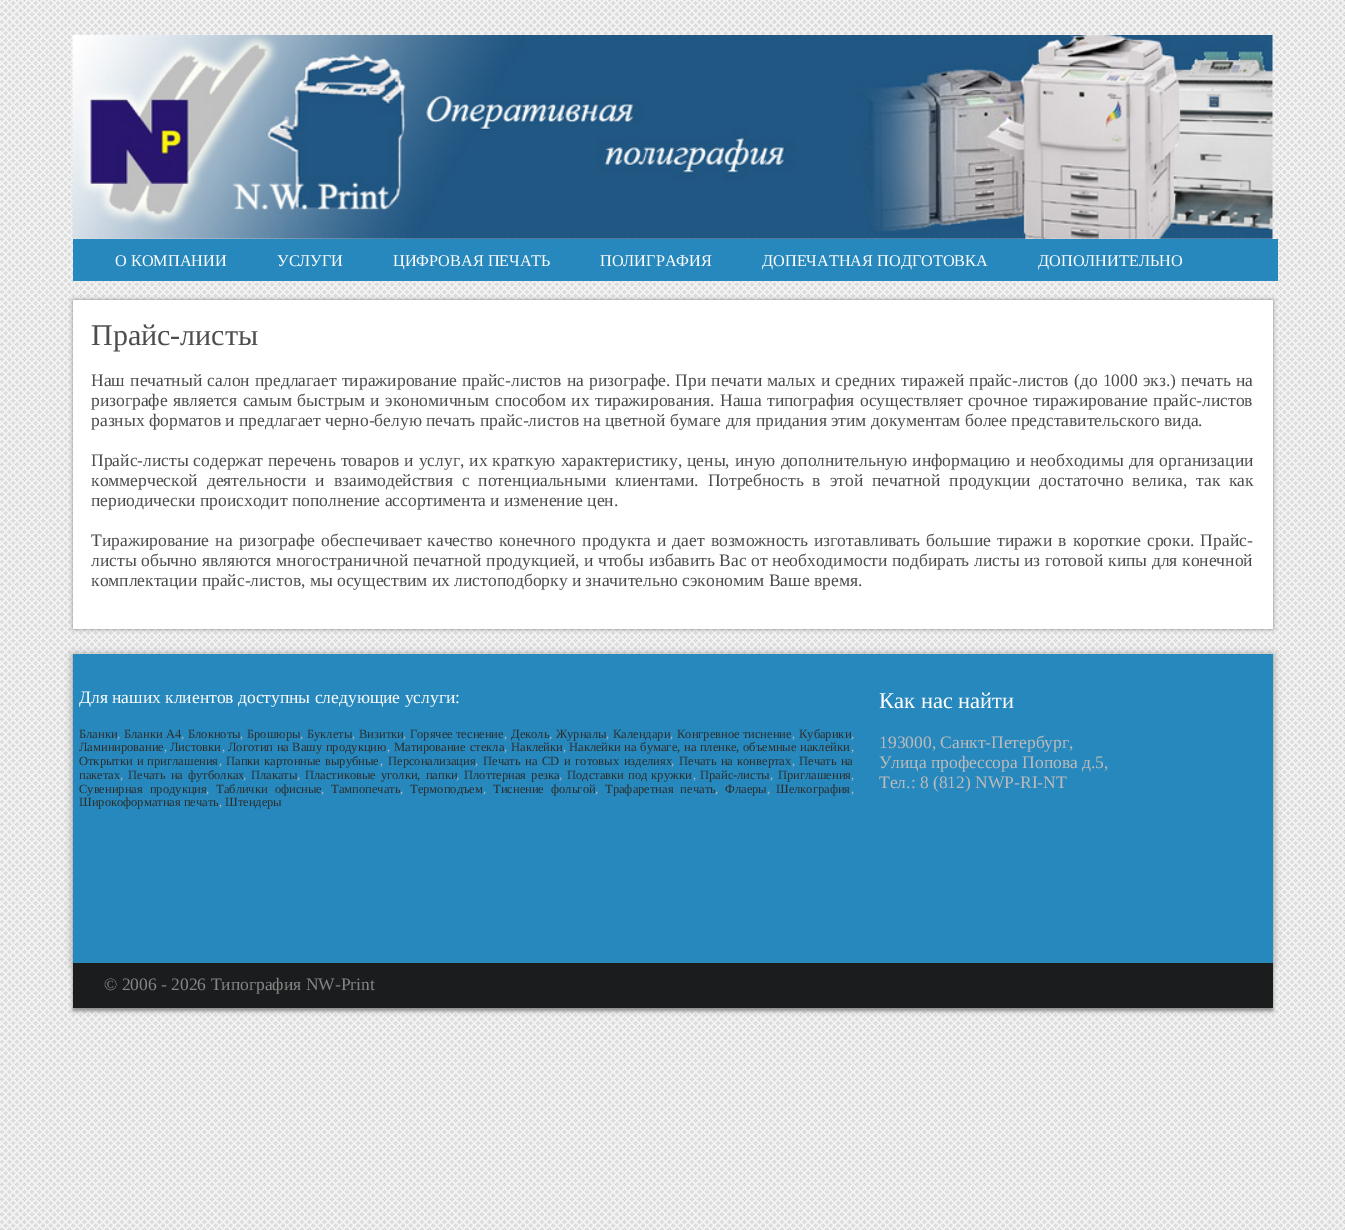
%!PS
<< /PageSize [1345 1230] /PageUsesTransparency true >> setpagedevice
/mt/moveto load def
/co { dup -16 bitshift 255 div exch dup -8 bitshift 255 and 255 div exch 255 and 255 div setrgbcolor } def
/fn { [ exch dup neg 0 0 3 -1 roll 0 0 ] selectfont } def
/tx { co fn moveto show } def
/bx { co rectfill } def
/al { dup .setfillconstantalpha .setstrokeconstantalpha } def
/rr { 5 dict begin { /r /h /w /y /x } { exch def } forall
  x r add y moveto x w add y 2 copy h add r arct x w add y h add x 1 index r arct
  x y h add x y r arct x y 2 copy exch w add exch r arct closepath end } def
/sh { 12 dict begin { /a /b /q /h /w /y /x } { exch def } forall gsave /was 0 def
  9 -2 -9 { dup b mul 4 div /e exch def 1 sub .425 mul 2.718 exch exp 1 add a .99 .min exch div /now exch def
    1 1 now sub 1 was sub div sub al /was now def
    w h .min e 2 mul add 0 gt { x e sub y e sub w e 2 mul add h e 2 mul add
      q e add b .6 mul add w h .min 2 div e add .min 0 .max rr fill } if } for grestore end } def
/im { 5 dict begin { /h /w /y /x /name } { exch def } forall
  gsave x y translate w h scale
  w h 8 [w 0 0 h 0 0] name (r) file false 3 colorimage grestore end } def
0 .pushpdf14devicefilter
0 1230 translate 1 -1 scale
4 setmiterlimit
0 0 1345 1230 16#FFFFFF bx
(media/1.raw) 0 0 1345 1230 im
(media/2.raw) 72 35 1201 204 im
73 239 1205 42 16#2688BC bx
16#818085 co
73 300 1200 329 0 2 1 sh
73 300 1200 329 16#FFFFFF bx
16#888888 co
73 655 1200 309 0 4 1 sh
73 654 1200 309 16#2688BC bx
16#888888 co
73 966 1200 45 0 2 1 sh
73 963 1200 45 16#1A1C1D bx
(О КОМПАНИИ) 115 266 /LiberationSerif-Regular 16.25 16#FFFFFF tx
(УСЛУГИ) 277 266 /LiberationSerif-Regular 16.25 16#FFFFFF tx
(ЦИФРОВАЯ ПЕЧАТЬ) 393 266 /LiberationSerif-Regular 16.25 16#FFFFFF tx
(ПОЛИГРАФИЯ) 600 266 /LiberationSerif-Regular 16.25 16#FFFFFF tx
(ДОПЕЧАТНАЯ ПОДГОТОВКА) 762 266 /LiberationSerif-Regular 16.25 16#FFFFFF tx
(ДОПОЛНИТЕЛЬНО) 1038 266 /LiberationSerif-Regular 16.25 16#FFFFFF tx
(Прайс-листы) 91 345 /LiberationSerif-Regular 30 16#4D4D4D tx
/LiberationSerif-Regular 17.5 fn
91 386 mt .9 0 32 (Наш печатный салон предлагает тиражирование прайс-листов на ризографе. При печати малых и средних тиражей прайс-листов \(до 1000 экз.\) печать на) widthshow
91 406 mt 1 0 32 (ризографе является самым быстрым и экономичным способом их тиражирования. Наша типография осуществляет срочное тиражирование прайс-листов) widthshow
(разных форматов и предлагает черно-белую печать прайс-листов на цветной бумаге для придания этим документам более представительского вида.) 91 426 /LiberationSerif-Regular 17.5 16#4D4D4D tx
91 466 mt .75 0 32 (Прайс-листы содержат перечень товаров и услуг, их краткую характеристику, цены, иную дополнительную информацию и необходимы для организации) widthshow
91 486 mt 4.5 0 32 (коммерческой деятельности и взаимодействия с потенциальными клиентами. Потребность в этой печатной продукции достаточно велика, так как) widthshow
(периодически происходит пополнение ассортимента и изменение цен.) 91 506 /LiberationSerif-Regular 17.5 16#4D4D4D tx
91 546 mt 1.8 0 32 (Тиражирование на ризографе обеспечивает качество конечного продукта и дает возможность изготавливать большие тиражи в короткие сроки. Прайс-) widthshow
91 566 mt .25 0 32 (листы обычно являются многостраничной печатной продукцией, и чтобы избавить Вас от необходимости подбирать листы из готовой кипы для конечной) widthshow
(комплектации прайс-листов, мы осуществим их листоподборку и значительно сэкономим Ваше время.) 91 586 /LiberationSerif-Regular 17.5 16#4D4D4D tx
(Для наших клиентов доступны следующие услуги:) 79 703 /LiberationSerif-Regular 17.5 16#FFFFFF tx
(Бланки) 79 738 /LiberationSerif-Regular 12.5 16#2C2C2C tx
(,) 117 738 /LiberationSerif-Regular 12.5 16#BCBABA tx
(Бланки А4) 124 738 /LiberationSerif-Regular 12.5 16#2C2C2C tx
(,) 181 738 /LiberationSerif-Regular 12.5 16#BCBABA tx
(Блокноты) 188 738 /LiberationSerif-Regular 12.5 16#2C2C2C tx
(,) 240 738 /LiberationSerif-Regular 12.5 16#BCBABA tx
(Брошюры) 247 738 /LiberationSerif-Regular 12.5 16#2C2C2C tx
(,) 300 738 /LiberationSerif-Regular 12.5 16#BCBABA tx
(Буклеты) 307 738 /LiberationSerif-Regular 12.5 16#2C2C2C tx
(,) 352 738 /LiberationSerif-Regular 12.5 16#BCBABA tx
(Визитки) 359 738 /LiberationSerif-Regular 12.5 16#2C2C2C tx
(,) 403 738 /LiberationSerif-Regular 12.5 16#BCBABA tx
(Горячее теснение) 410 738 /LiberationSerif-Regular 12.5 16#2C2C2C tx
(,) 504 738 /LiberationSerif-Regular 12.5 16#BCBABA tx
(Деколь) 511 738 /LiberationSerif-Regular 12.5 16#2C2C2C tx
(,) 549 738 /LiberationSerif-Regular 12.5 16#BCBABA tx
(Журналы) 556 738 /LiberationSerif-Regular 12.5 16#2C2C2C tx
(,) 606 738 /LiberationSerif-Regular 12.5 16#BCBABA tx
(Календари) 613 738 /LiberationSerif-Regular 12.5 16#2C2C2C tx
(,) 670 738 /LiberationSerif-Regular 12.5 16#BCBABA tx
(Конгревное тиснение) 677 738 /LiberationSerif-Regular 12.5 16#2C2C2C tx
(,) 792 738 /LiberationSerif-Regular 12.5 16#BCBABA tx
(Кубарики) 799 738 /LiberationSerif-Regular 12.5 16#2C2C2C tx
(,) 851 738 /LiberationSerif-Regular 12.5 16#BCBABA tx
(Ламинирование) 79 751 /LiberationSerif-Regular 12.5 16#2C2C2C tx
(,) 164 751 /LiberationSerif-Regular 12.5 16#BCBABA tx
(Листовки) 170 751 /LiberationSerif-Regular 12.5 16#2C2C2C tx
(,) 222 751 /LiberationSerif-Regular 12.5 16#BCBABA tx
16#2C2C2C co
228 751 mt .5 0 32 (Логотип на Вашу продукцию) widthshow
(,) 387 751 /LiberationSerif-Regular 12.5 16#BCBABA tx
16#2C2C2C co
394 751 mt 1 0 32 (Матирование стекла) widthshow
(,) 504 751 /LiberationSerif-Regular 12.5 16#BCBABA tx
(Наклейки) 511 751 /LiberationSerif-Regular 12.5 16#2C2C2C tx
(,) 563 751 /LiberationSerif-Regular 12.5 16#BCBABA tx
16#2C2C2C co
569 751 mt .5 0 32 (Наклейки на бумаге, на пленке, объемные наклейки) widthshow
(,) 851 751 /LiberationSerif-Regular 12.5 16#BCBABA tx
16#2C2C2C co
79 765 mt 1 0 32 (Открытки и приглашения) widthshow
(,) 219 765 /LiberationSerif-Regular 12.5 16#BCBABA tx
16#2C2C2C co
226 765 mt 1 0 32 (Папки картонные вырубные) widthshow
(,) 380 765 /LiberationSerif-Regular 12.5 16#BCBABA tx
(Персонализация) 388 765 /LiberationSerif-Regular 12.5 16#2C2C2C tx
(,) 475 765 /LiberationSerif-Regular 12.5 16#BCBABA tx
16#2C2C2C co
483 765 mt 1.5 0 32 (Печать на CD и готовых изделиях) widthshow
(,) 671 765 /LiberationSerif-Regular 12.5 16#BCBABA tx
16#2C2C2C co
679 765 mt 1 0 32 (Печать на конвертах) widthshow
(,) 792 765 /LiberationSerif-Regular 12.5 16#BCBABA tx
16#2C2C2C co
799 765 mt 1 0 32 (Печать на) widthshow
(пакетах) 79 779 /LiberationSerif-Regular 12.5 16#2C2C2C tx
(,) 120 779 /LiberationSerif-Regular 12.5 16#BCBABA tx
16#2C2C2C co
128 779 mt 2 0 32 (Печать на футболках) widthshow
(,) 243 779 /LiberationSerif-Regular 12.5 16#BCBABA tx
(Плакаты) 251 779 /LiberationSerif-Regular 12.5 16#2C2C2C tx
(,) 297 779 /LiberationSerif-Regular 12.5 16#BCBABA tx
16#2C2C2C co
305 779 mt 2 0 32 (Пластиковые уголки, папки) widthshow
(,) 456 779 /LiberationSerif-Regular 12.5 16#BCBABA tx
16#2C2C2C co
464 779 mt 2 0 32 (Плоттерная резка) widthshow
(,) 559 779 /LiberationSerif-Regular 12.5 16#BCBABA tx
16#2C2C2C co
567 779 mt 1 0 32 (Подставки под кружки) widthshow
(,) 693 779 /LiberationSerif-Regular 12.5 16#BCBABA tx
(Прайс-листы) 700 779 /LiberationSerif-Regular 12.5 16#2C2C2C tx
(,) 770 779 /LiberationSerif-Regular 12.5 16#BCBABA tx
(Приглашения) 778 779 /LiberationSerif-Regular 12.5 16#2C2C2C tx
(,) 851 779 /LiberationSerif-Regular 12.5 16#BCBABA tx
16#2C2C2C co
79 793 mt 4 0 32 (Сувенирная продукция) widthshow
(,) 206 793 /LiberationSerif-Regular 12.5 16#BCBABA tx
16#2C2C2C co
216 793 mt 4 0 32 (Таблички офисные) widthshow
(,) 321 793 /LiberationSerif-Regular 12.5 16#BCBABA tx
(Тампопечать) 331 793 /LiberationSerif-Regular 12.5 16#2C2C2C tx
(,) 400 793 /LiberationSerif-Regular 12.5 16#BCBABA tx
(Термоподъем) 410 793 /LiberationSerif-Regular 12.5 16#2C2C2C tx
(,) 483 793 /LiberationSerif-Regular 12.5 16#BCBABA tx
16#2C2C2C co
493 793 mt 4 0 32 (Тиснение фольгой) widthshow
(,) 595 793 /LiberationSerif-Regular 12.5 16#BCBABA tx
16#2C2C2C co
605 793 mt 4 0 32 (Трафаретная печать) widthshow
(,) 715 793 /LiberationSerif-Regular 12.5 16#BCBABA tx
(Флаеры) 725 793 /LiberationSerif-Regular 12.5 16#2C2C2C tx
(,) 767 793 /LiberationSerif-Regular 12.5 16#BCBABA tx
(Шелкография) 776 793 /LiberationSerif-Regular 12.5 16#2C2C2C tx
(,) 851 793 /LiberationSerif-Regular 12.5 16#BCBABA tx
(Широкоформатная печать) 79 806 /LiberationSerif-Regular 12.5 16#2C2C2C tx
(,) 219 806 /LiberationSerif-Regular 12.5 16#BCBABA tx
(Штендеры) 225 806 /LiberationSerif-Regular 12.5 16#2C2C2C tx
(Как нас найти) 879 708 /LiberationSerif-Regular 22.5 16#FFFFFF tx
(193000, Санкт-Петербург,) 879 748 /LiberationSerif-Regular 17.5 16#BCBABA tx
(Улица профессора Попова д.5,) 879 768 /LiberationSerif-Regular 17.5 16#BCBABA tx
(Тел.: 8 \(812\) NWP-RI-NT) 879 788 /LiberationSerif-Regular 17.5 16#BCBABA tx
(© 2006 - 2026 Типография NW-Print) 104 990 /LiberationSerif-Regular 17.5 16#848484 tx
.poppdf14devicefilter showpage
